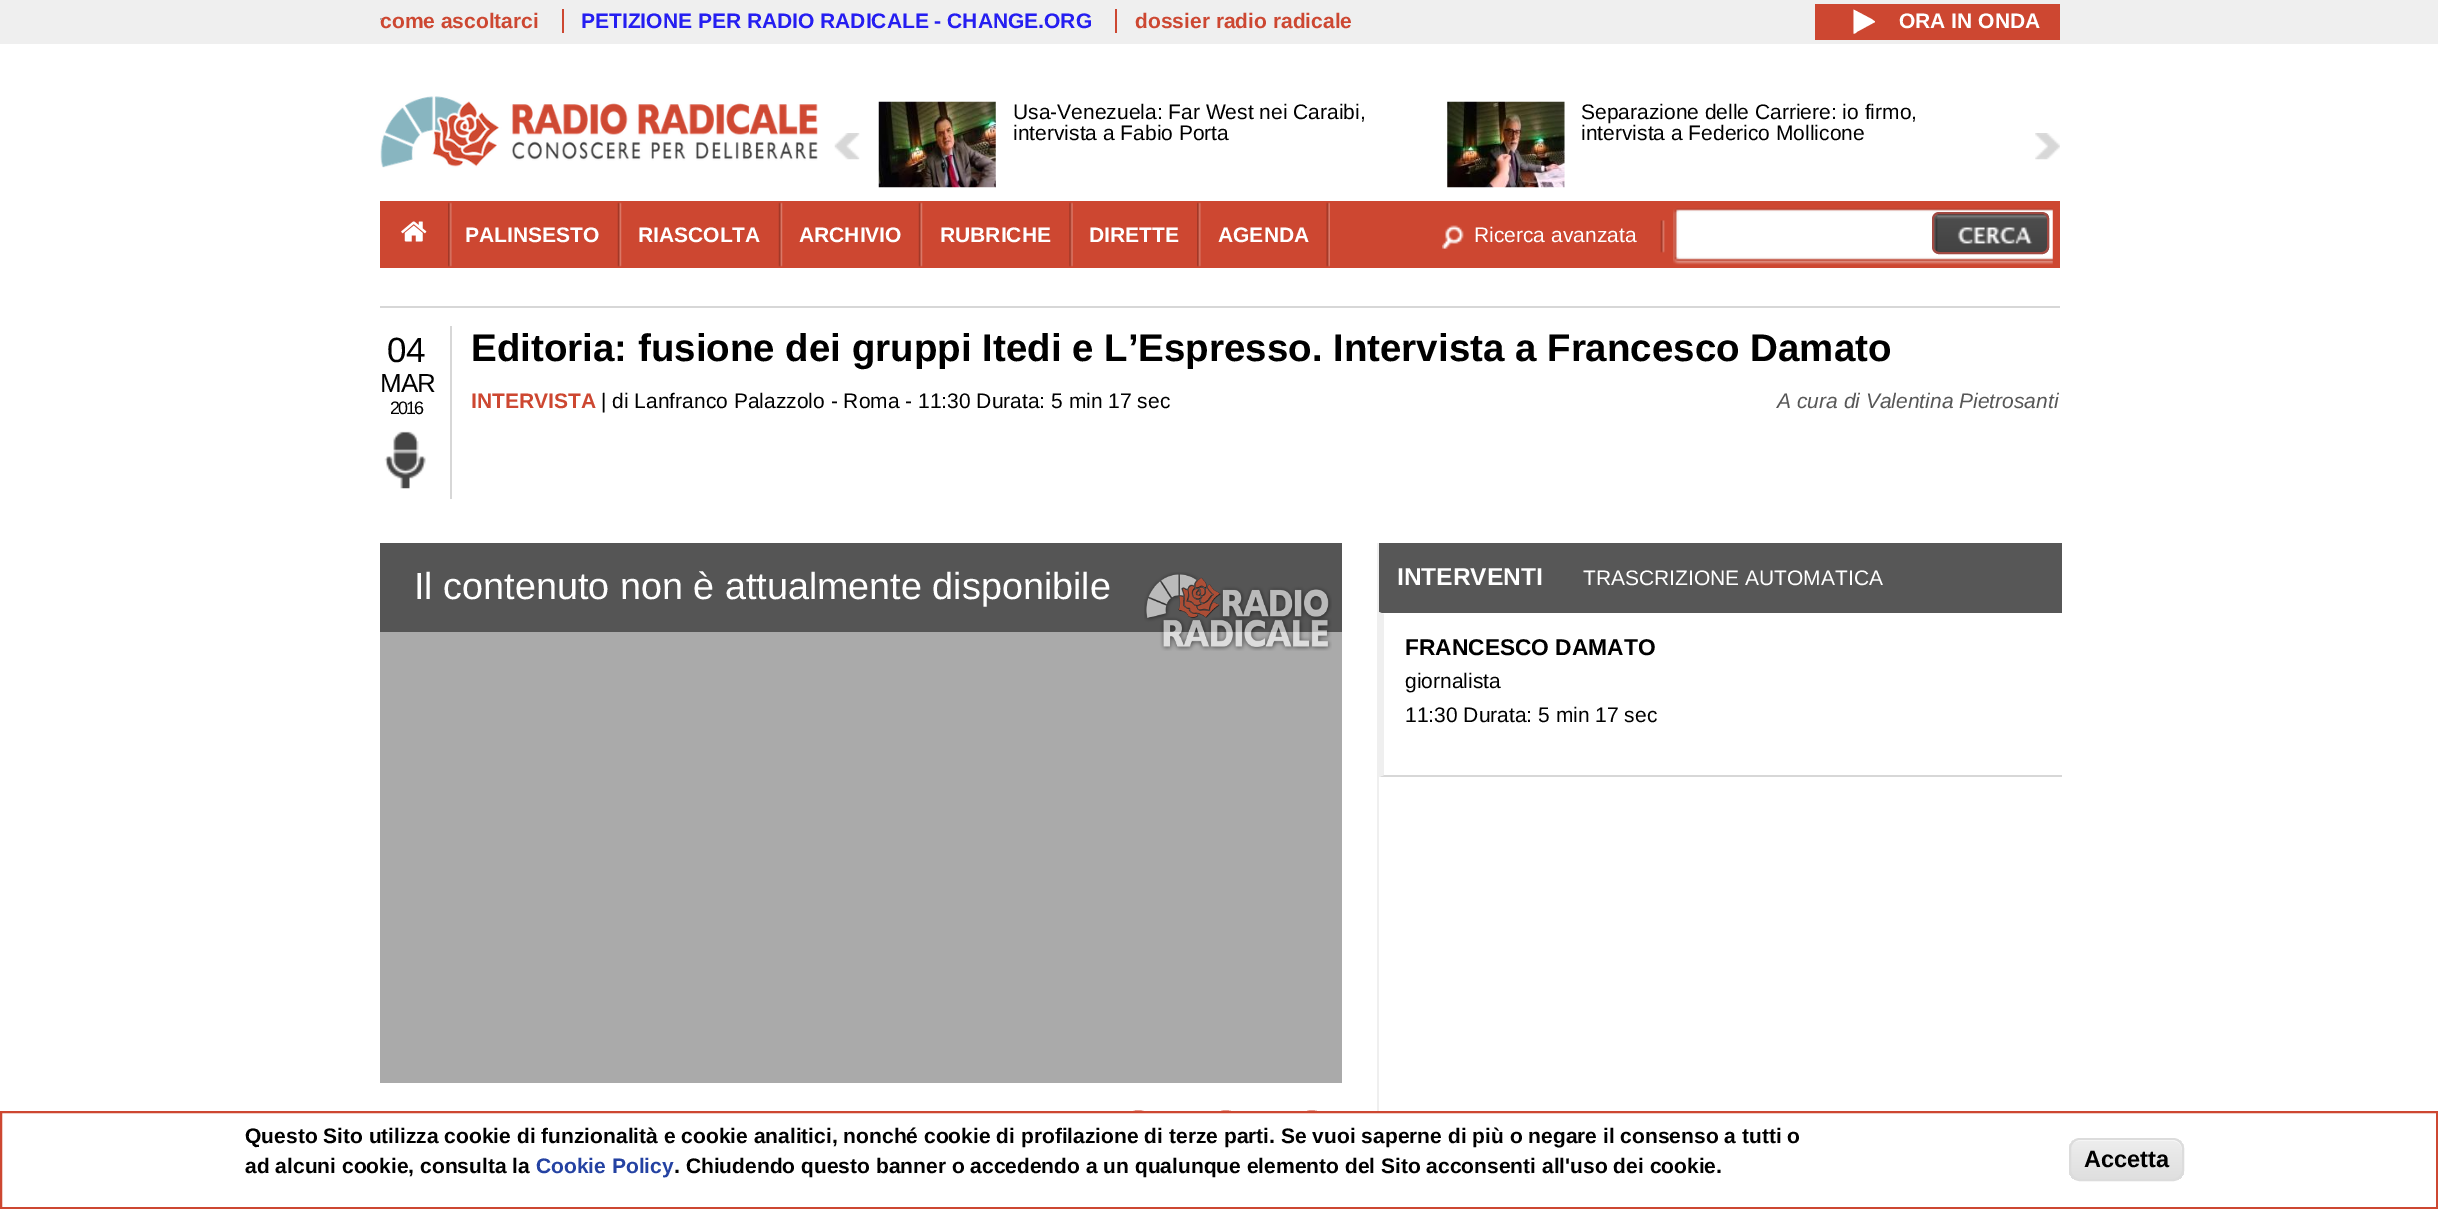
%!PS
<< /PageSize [2438 1209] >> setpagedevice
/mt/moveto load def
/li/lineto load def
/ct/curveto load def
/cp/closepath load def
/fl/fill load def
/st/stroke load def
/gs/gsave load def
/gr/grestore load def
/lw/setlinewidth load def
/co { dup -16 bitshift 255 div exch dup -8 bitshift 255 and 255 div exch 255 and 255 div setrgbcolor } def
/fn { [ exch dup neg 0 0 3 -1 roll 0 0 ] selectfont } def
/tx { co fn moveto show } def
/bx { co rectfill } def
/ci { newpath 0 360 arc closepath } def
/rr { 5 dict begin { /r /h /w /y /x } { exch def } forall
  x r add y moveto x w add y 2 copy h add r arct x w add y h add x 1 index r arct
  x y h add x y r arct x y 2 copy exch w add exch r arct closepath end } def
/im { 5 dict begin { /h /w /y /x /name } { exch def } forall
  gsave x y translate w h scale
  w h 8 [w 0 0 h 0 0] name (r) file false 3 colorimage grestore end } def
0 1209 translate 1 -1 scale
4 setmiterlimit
0 0 2438 1209 16#FFFFFF bx
0 0 2438 44 16#EFEFEF bx
562 9 2 24 16#CD4731 bx
1115 9 2 24 16#CD4731 bx
1815 4 245 36 16#CD4731 bx
16#FFFFFF co
1875 22 mt 1857.5 31.5 li 1857 32 1854 34.5 1853.5 33.5 ct 1853.5 9.5 li 1871.5 19 li 1875 21.5 li cp fl
380 306 1680 2 16#D7D7D7 bx
(media/1.raw) 380 96 438 72 im
(media/2.raw) 878 101 118 87 im
(media/3.raw) 1447 101 118 87 im
(media/4.raw) 834 133 26 27 im
(media/5.raw) 2035 133 25 27 im
380 201 1680 67 16#CD4731 bx
(media/6.raw) 401 221 26 21 im
(media/7.raw) 448 202 4 65 im
(media/8.raw) 617 202 5 65 im
(media/9.raw) 778 202 5 65 im
(media/8.raw) 918 202 5 65 im
(media/10.raw) 1069 202 4 65 im
(media/7.raw) 1197 202 4 65 im
(media/11.raw) 1326 202 4 65 im
(media/12.raw) 1442 220 223 33 im
(media/13.raw) 1673 208 380 57 im
(media/14.raw) 1933 213 117 41 im
16#A14942 co
2 lw
1933 213 115 40 6 rr st
(media/15.raw) 384 431 42 58 im
450 326 2 173 16#D7D7D7 bx
380 632 962 451 16#AAAAAA bx
380 543 962 89 16#555555 bx
(media/16.raw) 1144 572 188 79 im
16#CD4731 co
1147 1117 mt 1120 1105 1102 1147 1130 1158 ct 1157 1170 1174 1129 1147 1117 ct cp 1162 1124 mt 1164 1129 1166 1134 1165 1140 ct 1164 1166 1128 1174 1115 1151 ct 1112 1147 1111 1141 1111 1136 ct 1113 1109 1148 1101 1162 1124 ct cp fl
1234 1117 mt 1207 1105 1190 1147 1217 1158 ct 1244 1170 1262 1129 1234 1117 ct cp 1249 1124 mt 1252 1129 1253 1134 1253 1140 ct 1251 1166 1216 1174 1202 1151 ct 1200 1147 1198 1141 1199 1136 ct 1200 1109 1236 1101 1249 1124 ct cp fl
1320 1117 mt 1293 1105 1275 1147 1303 1158 ct 1330 1170 1348 1129 1320 1117 ct cp 1335 1124 mt 1338 1129 1339 1134 1338 1140 ct 1337 1166 1301 1174 1288 1151 ct 1285 1147 1284 1141 1285 1136 ct 1286 1109 1322 1101 1335 1124 ct cp fl
1377 543 2 568 16#EFEFEF bx
1379 543 683 70 16#575757 bx
16#D7D7D7 co
2062 777 mt 1379 777 li 1384 775 li 2062 775 li cp fl
16#EFEFEF co
1379 777 mt 1379 612 li 1384 614 li 1384 775 li cp fl
1111 1113 228 52 16#FFFFFF bx
16#CD4731 co
1 1112 2436 96 rectstroke
gs
2069 1138 115 43 11 rr clip newpath
gs 2069 1139 mt 2184 1139 li 2184 1180 li 2069 1180 li cp clip newpath
<< /ShadingType 2 /ColorSpace /DeviceRGB /Coords [2126 1139 2126 1180] /Extend [true true] /Function << /FunctionType 3 /Domain [0 1] /Functions [<< /FunctionType 2 /Domain [0 1] /C0 [.929 .929 .929] /C1 [.929 .929 .929] /N 1 >> << /FunctionType 2 /Domain [0 1] /C0 [.929 .929 .929] /C1 [.875 .875 .875] /N 1 >>] /Bounds [.05] /Encode [0 1 0 1] >> >> shfill gr
gr
16#FFFFFF co
2079 1141 mt 2174 1141 li 2178 1141 2182 1145 2182 1150 ct 2182 1135 2168 1139 2157 1139 ct 2095 1139 li 2084 1139 2070 1135 2070 1150 ct 2070 1145 2074 1141 2079 1141 ct cp fl
16#DCDCDC co
2070 1139 113 41 10 rr st
(come ascoltarci) 380 28 /LiberationSans-Bold 21 16#CD4731 tx
(PETIZIONE PER RADIO RADICALE - CHANGE.ORG) 581 28 /LiberationSans-Bold 21 16#251EF1 tx
(dossier radio radicale) 1135 28 /LiberationSans-Bold 21 16#CD4731 tx
16#AAAAAA co
381 19 1 ci fl
(ORA IN ONDA) 1899 28 /LiberationSans-Bold 21 16#FFFFFF tx
(Usa-Venezuela: Far West nei Caraibi,) 1013 119 /LiberationSans-Regular 21 16#000000 tx
(intervista a Fabio Porta) 1013 140 /LiberationSans-Regular 21 16#000000 tx
(Separazione delle Carriere: io firmo,) 1581 119 /LiberationSans-Regular 21 16#000000 tx
(intervista a Federico Mollicone) 1581 140 /LiberationSans-Regular 21 16#000000 tx
(PALINSESTO) 465 242 /LiberationSans-Bold 21 16#FFFFFF tx
(RIASCOLTA) 638 242 /LiberationSans-Bold 21 16#FFFFFF tx
(ARCHIVIO) 799 242 /LiberationSans-Bold 21 16#FFFFFF tx
(RUBRICHE) 940 242 /LiberationSans-Bold 21 16#FFFFFF tx
(DIRETTE) 1089 242 /LiberationSans-Bold 21 16#FFFFFF tx
(AGENDA) 1218 242 /LiberationSans-Bold 21 16#FFFFFF tx
(Ricerca avanzata) 1474 242 /LiberationSans-Regular 21 16#FFFFFF tx
(04) 387 362 /LiberationSans-Regular 35 16#000000 tx
/LiberationSans-Regular 26 fn
380 392 mt -1 0 (MAR) ashow
/LiberationSans-Regular 18 fn
390 414 mt -2 0 (2016) ashow
(Editoria: fusione dei gruppi Itedi e L’Espresso. Intervista a Francesco Damato) 471 361 /LiberationSans-Bold 38.5 16#000000 tx
(INTERVISTA) 471 408 /LiberationSans-Bold 21 16#CD4731 tx
(| di Lanfranco Palazzolo - Roma - 11:30 Durata: 5 min 17 sec) 601 408 /LiberationSans-Regular 21 16#000000 tx
(A cura di Valentina Pietrosanti) 1777 408 /LiberationSans-Italic 21 16#575757 tx
(Il contenuto non è attualmente disponibile) 414 599 /LiberationSans-Regular 37.75 16#FFFFFF tx
(INTERVENTI) 1397 585 /LiberationSans-Bold 24.5 16#FFFFFF tx
(TRASCRIZIONE AUTOMATICA) 1583 585 /LiberationSans-Regular 21 16#FFFFFF tx
(FRANCESCO DAMATO) 1405 655 /LiberationSans-Bold 22.75 16#000000 tx
(giornalista) 1405 688 /LiberationSans-Regular 21 16#000000 tx
(11:30 Durata: 5 min 17 sec) 1405 722 /LiberationSans-Regular 21 16#000000 tx
(Questo Sito utilizza cookie di funzionalità e cookie analitici, nonché cookie di profilazione di terze parti. Se vuoi saperne di più o negare il consenso a tutti o) 245 1143 /LiberationSans-Bold 21 16#000000 tx
(ad alcuni cookie, consulta la) 245 1173 /LiberationSans-Bold 21 16#000000 tx
(Cookie Policy) 536 1173 /LiberationSans-Bold 21 16#2442A2 tx
(. Chiudendo questo banner o accedendo a un qualunque elemento del Sito acconsenti all'uso dei cookie.) 674 1173 /LiberationSans-Bold 21 16#000000 tx
(Accetta) 2084 1167 /LiberationSans-Bold 23.5 16#000000 tx
showpage
